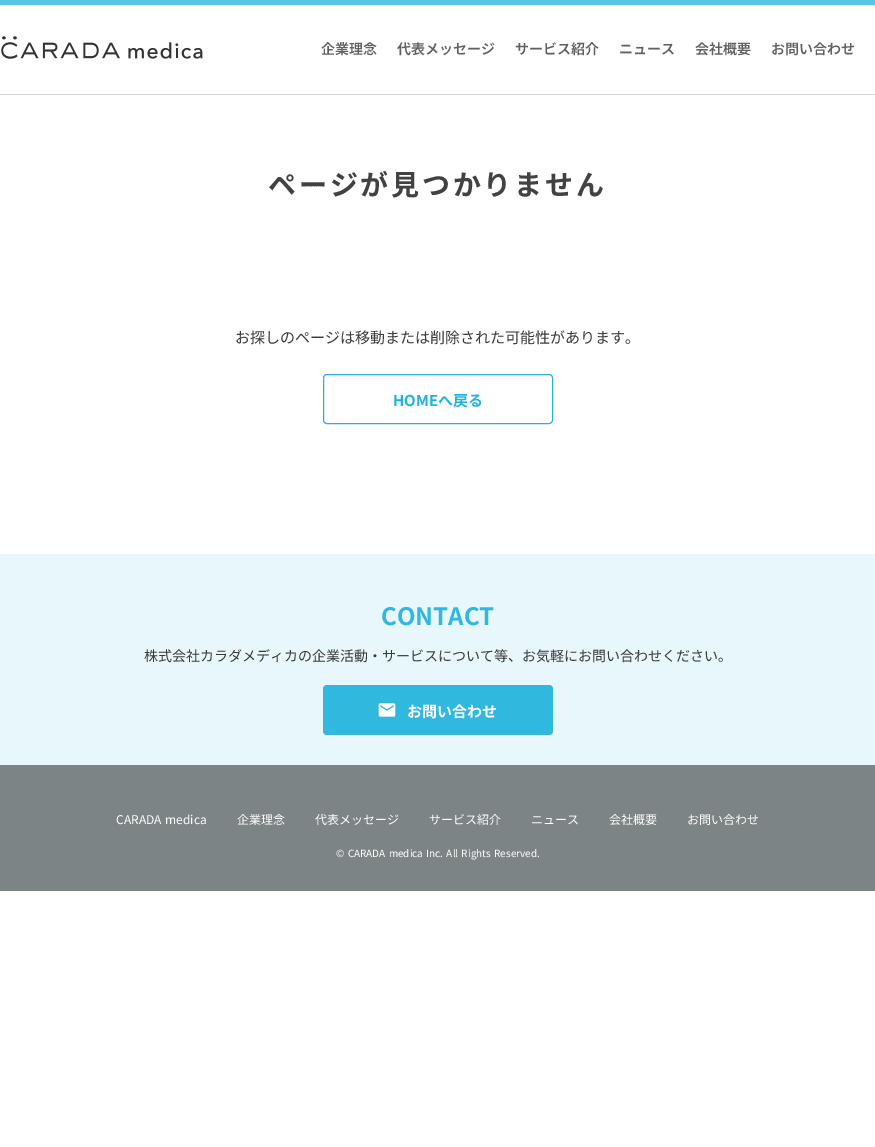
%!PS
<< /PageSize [875 1147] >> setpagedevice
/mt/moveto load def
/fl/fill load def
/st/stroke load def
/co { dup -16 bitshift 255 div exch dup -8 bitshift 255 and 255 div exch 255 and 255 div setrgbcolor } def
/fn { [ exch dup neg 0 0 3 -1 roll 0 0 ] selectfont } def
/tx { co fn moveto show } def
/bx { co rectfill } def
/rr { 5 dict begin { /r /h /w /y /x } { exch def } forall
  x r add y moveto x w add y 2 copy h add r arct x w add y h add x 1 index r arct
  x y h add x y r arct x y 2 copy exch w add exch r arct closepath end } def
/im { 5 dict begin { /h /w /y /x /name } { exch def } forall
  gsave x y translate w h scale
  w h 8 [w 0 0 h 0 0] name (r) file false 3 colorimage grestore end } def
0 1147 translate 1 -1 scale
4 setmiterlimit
0 0 875 1147 16#FFFFFF bx
0 94 875 1 16#D6D6D6 bx
0 0 875 5 16#5AC6E5 bx
(media/1.raw) 1 36 202 23 im
16#22B3DD co
323.5 374.5 229 49 3.5 rr st
0 554 875 211 16#E7F7FB bx
16#31B8DF co
323 685 230 50 4 rr fl
(media/2.raw) 378 703 18 14 im
0 765 875 126 16#7C8486 bx
(企業理念) 321 54 /NotoSansJP-SemiBold 14 16#616161 tx
(代表メッセージ) 397 54 /NotoSansJP-SemiBold 14 16#616161 tx
(サービス紹介) 515 54 /NotoSansJP-SemiBold 14 16#616161 tx
(ニュース) 619 54 /NotoSansJP-SemiBold 14 16#616161 tx
(会社概要) 695 54 /NotoSansJP-SemiBold 14 16#616161 tx
(お問い合わせ) 771 54 /NotoSansJP-SemiBold 14 16#616161 tx
/NotoSansJP-Bold 28 fn
16#424242 co
268 195 mt 2.75 0 (ページが見つかりません) ashow
(お探しのページは移動または削除された可能性があります。) 235 343 /NotoSansJP-Regular 15 16#393939 tx
(HOMEへ戻る) 393 406 /NotoSansJP-Bold 15 16#22B3DD tx
(CONTACT) 381 625 /NotoSansJP-Bold 24 16#31B8DF tx
(株式会社カラダメディカの企業活動・サービスについて等、お気軽にお問い合わせください。) 144 661 /NotoSansJP-Regular 14 16#393939 tx
(お問い合わせ) 407 717 /NotoSansJP-Bold 15 16#FFFFFF tx
/NotoSansJP-Regular 12 fn
116 824 mt 1 0 32 (CARADA medica) widthshow
(企業理念) 237 824 /NotoSansJP-Regular 12 16#FFFFFF tx
(代表メッセージ) 315 824 /NotoSansJP-Regular 12 16#FFFFFF tx
(サービス紹介) 429 824 /NotoSansJP-Regular 12 16#FFFFFF tx
(ニュース) 531 824 /NotoSansJP-Regular 12 16#FFFFFF tx
(会社概要) 609 824 /NotoSansJP-Regular 12 16#FFFFFF tx
(お問い合わせ) 687 824 /NotoSansJP-Regular 12 16#FFFFFF tx
/NotoSansJP-Regular 10 fn
336 857 mt 1 0 32 (© CARADA medica Inc. All Rights Reserved.) widthshow
showpage
